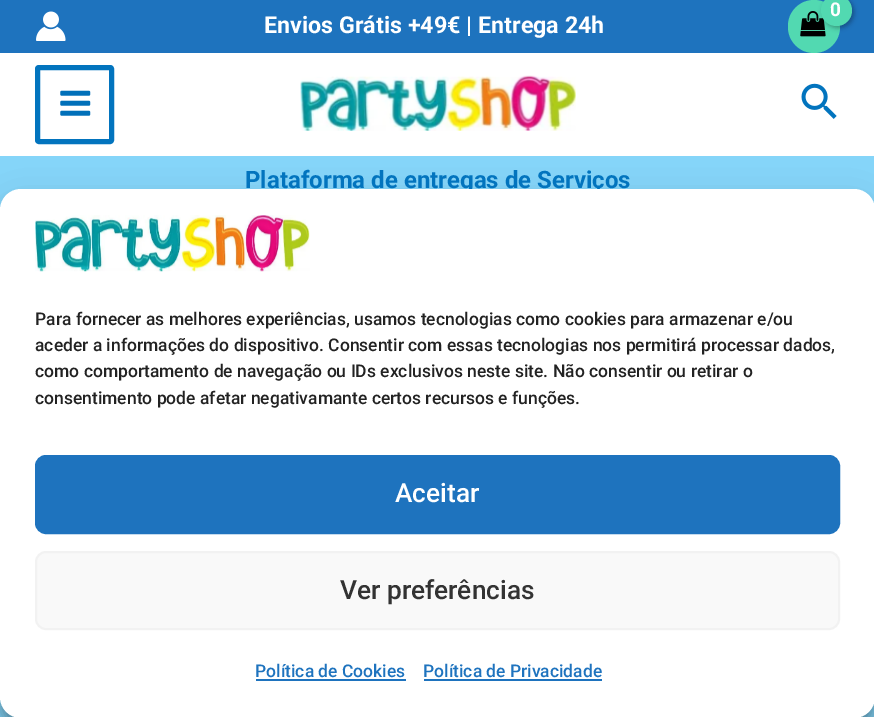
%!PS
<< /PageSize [874 717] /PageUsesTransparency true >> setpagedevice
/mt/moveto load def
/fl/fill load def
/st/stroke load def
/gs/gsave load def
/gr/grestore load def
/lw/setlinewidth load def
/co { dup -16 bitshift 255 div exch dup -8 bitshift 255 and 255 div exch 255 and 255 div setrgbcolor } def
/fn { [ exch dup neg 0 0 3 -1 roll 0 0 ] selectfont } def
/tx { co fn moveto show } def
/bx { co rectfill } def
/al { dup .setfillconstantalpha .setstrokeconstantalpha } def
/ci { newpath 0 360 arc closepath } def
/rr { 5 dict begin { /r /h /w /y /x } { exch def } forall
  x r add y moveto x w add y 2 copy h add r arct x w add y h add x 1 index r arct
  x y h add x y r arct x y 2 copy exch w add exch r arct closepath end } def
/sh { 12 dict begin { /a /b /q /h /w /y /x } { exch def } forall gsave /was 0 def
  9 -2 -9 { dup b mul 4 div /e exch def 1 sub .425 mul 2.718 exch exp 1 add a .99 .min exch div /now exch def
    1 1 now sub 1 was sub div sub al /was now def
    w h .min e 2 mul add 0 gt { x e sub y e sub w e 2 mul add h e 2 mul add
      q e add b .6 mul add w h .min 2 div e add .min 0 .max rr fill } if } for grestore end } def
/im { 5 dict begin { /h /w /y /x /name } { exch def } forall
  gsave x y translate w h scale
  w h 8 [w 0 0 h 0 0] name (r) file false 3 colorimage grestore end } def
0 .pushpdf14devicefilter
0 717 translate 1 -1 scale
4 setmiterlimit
0 0 874 717 16#85D5F9 bx
0 0 874 53 16#1E73BE bx
16#52D9B1 co
788 0 52 53 26 rr fl
(media/1.raw) 800 11 26 26 im
16#000000 co
823 -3 31 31 15.5 2.5 .3 sh
16#52D9B1 co
836.5 10.5 15.5 ci fl
(media/2.raw) 36 11 30 30 im
0 53 874 103 16#FFFFFF bx
16#0274BE co
5 lw
37.5 67.5 74 74 1.5 rr st
(media/3.raw) 60 90 31 26 im
(media/4.raw) 300 75 276 56 im
(media/5.raw) 801 83 36 36 im
16#000000 co
0 200 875 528 21 5 .23 sh
0 207 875 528 21 17.5 .19 sh
/Roboto-Bold 19 fn
16#FFFFFF co
830 16 mt -1 0 (0) ashow
(Envios Grátis +49€ | Entrega 24h) 264 33 /Roboto-Bold 23.3 16#FFFFFF tx
(Plataforma de entregas de Serviços) 245 188 /Roboto-Bold 24 16#0274BE tx
16#FFFFFF co
0 189 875 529 21 rr fl
(media/6.raw) 35 215 275 57 im
(Para fornecer as melhores experiências, usamos tecnologias como cookies para armazenar e/ou) 35 325 /Roboto-Medium 17.5 16#222222 tx
(aceder a informações do dispositivo. Consentir com essas tecnologias nos permitirá processar dados,) 35 351 /Roboto-Medium 17.5 16#222222 tx
(como comportamento de navegação ou IDs exclusivos neste site. Não consentir ou retirar o) 35 377 /Roboto-Medium 17.5 16#222222 tx
(consentimento pode afetar negativamante certos recursos e funções.) 35 404 /Roboto-Medium 17.5 16#222222 tx
16#1E73BE co
36 456 803 77 10 rr gs fl gr
2 lw
st
(Aceitar) 395 502 /Roboto-Medium 26.25 16#FFFFFF tx
16#F9F9F9 co
36 552 803 77 10 rr gs fl gr
16#F2F2F2 co
st
(Ver preferências) 340 599 /Roboto-Medium 26.25 16#333333 tx
(Política de Cookies) 255 677 /Roboto-Medium 17.5 16#1E73BE tx
256 679 150 2 16#1E73BE bx
(Política de Privacidade) 423 677 /Roboto-Medium 17.5 16#1E73BE tx
424 679 178 2 16#1E73BE bx
.poppdf14devicefilter showpage
